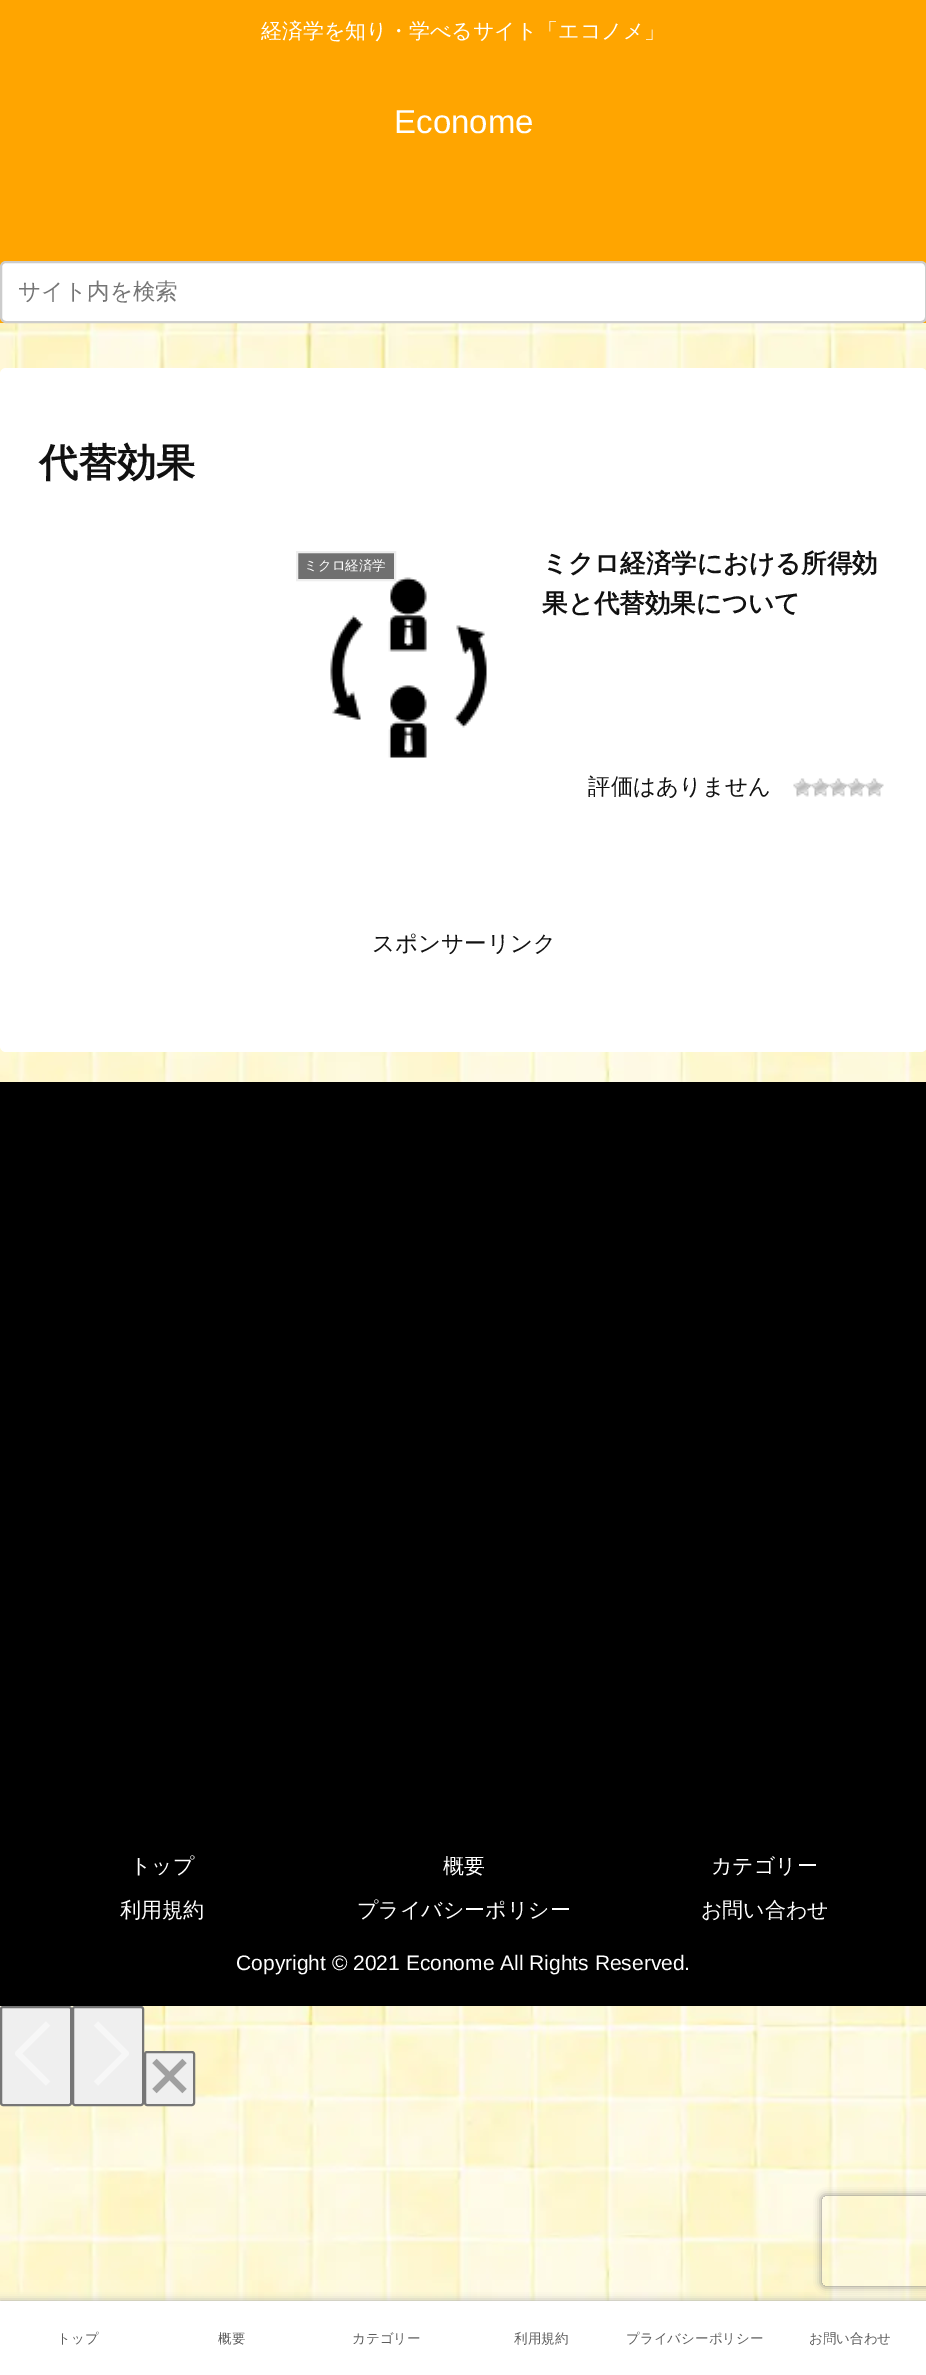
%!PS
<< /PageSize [926 2375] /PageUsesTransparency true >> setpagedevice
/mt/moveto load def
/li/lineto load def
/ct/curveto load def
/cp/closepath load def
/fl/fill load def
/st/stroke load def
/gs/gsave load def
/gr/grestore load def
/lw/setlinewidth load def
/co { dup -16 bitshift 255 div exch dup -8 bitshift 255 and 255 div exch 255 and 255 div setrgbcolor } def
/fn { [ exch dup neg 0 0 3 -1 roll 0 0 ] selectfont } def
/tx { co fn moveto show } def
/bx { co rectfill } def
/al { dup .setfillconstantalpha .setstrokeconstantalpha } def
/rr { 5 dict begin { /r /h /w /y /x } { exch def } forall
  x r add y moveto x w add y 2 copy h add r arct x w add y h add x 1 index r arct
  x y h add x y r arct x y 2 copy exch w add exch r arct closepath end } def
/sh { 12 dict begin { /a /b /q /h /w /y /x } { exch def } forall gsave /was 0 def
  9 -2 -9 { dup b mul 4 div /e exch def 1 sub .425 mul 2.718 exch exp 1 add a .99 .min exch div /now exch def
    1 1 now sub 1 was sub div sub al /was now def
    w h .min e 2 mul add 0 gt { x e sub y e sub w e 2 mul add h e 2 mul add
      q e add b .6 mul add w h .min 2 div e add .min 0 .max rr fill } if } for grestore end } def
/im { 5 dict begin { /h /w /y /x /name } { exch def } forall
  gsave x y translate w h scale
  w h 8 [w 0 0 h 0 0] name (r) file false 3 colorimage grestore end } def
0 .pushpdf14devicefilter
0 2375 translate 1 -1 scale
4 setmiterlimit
0 0 926 2375 16#FFFFFF bx
(media/1.raw) 0 323 926 1978 im
0 0 926 323 16#FFA500 bx
16#FFFFFF co
1 262 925 60 5 rr gs fl gr
16#CCCCCC co
2 lw
st
16#FFFFFF co
0 368 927 684 6 rr fl
(media/2.raw) 330 577 157 181 im
16#707070 co
297 552 mt 395 552 li 395 580 li 297 580 li cp gs fl gr
16#EEEEEE co
st
(media/3.raw) 793 778 19 19 im
(media/4.raw) 811 778 19 19 im
(media/4.raw) 829 778 19 19 im
(media/4.raw) 847 778 19 19 im
(media/4.raw) 865 778 19 19 im
0 1082 926 924 16#000000 bx
16#A9A9A9 co
0 2301 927 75 0 4 1 sh
0 2301 926 74 16#FFFFFF bx
16#EFEFEF co
1 2007 70 98 2 rr gs fl gr
16#767676 co
st
16#F7F7F7 co
6 lw
1 setlinejoin
48 2023.5 mt 18 2053.5 li 48 2083.5 li st
16#EFEFEF co
73 2007 70 98 2 rr gs fl gr
16#767676 co
2 lw
0 setlinejoin
st
16#F7F7F7 co
6 lw
1 setlinejoin
96 2023.5 mt 126 2053.5 li 96 2083.5 li st
16#EFEFEF co
145 2052 49 53 2 rr gs fl gr
16#767676 co
2 lw
0 setlinejoin
st
16#A0A0A0 co
6 lw
154.5 2061 mt 184.5 2091 li 154.5 2091 mt 184.5 2061 li st
gs
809 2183 mt 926 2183 li 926 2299 li 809 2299 li cp 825 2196 mt 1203 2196 li 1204.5 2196 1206 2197.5 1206 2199 ct 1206 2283 li 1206 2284.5 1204.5 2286 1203 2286 ct 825 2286 li 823.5 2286 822 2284.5 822 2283 ct 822 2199 li 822 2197.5 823.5 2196 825 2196 ct cp eoclip newpath
16#808080 co
822 2196 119 90 3 4 1 sh
gr
(経済学を知り・学べるサイト「エコノメ」) 261 38 /WenQuanYiZenHei-Medium 21 16#FFFFFF tx
(Econome) 394 133 /LiberationSans-Regular 33 16#FFFFFF tx
(サイト内を検索) 18 299 /WenQuanYiZenHei-Medium 22.5 16#757575 tx
(代替効果) 39 476 /WenQuanYiZenHei-Bold 39 16#111111 tx
(ミクロ経済学) 304 570 /WenQuanYiZenHei-Medium 13.5 16#FFFFFF tx
(ミクロ経済学における所得効) 542 572 /WenQuanYiZenHei-Bold 25.5 16#111111 tx
(果と代替効果について) 542 612 /WenQuanYiZenHei-Bold 25.5 16#111111 tx
(評価はありません) 588 794 /WenQuanYiZenHei-Medium 22.5 16#111111 tx
(スポンサーリンク) 372 951 /WenQuanYiZenHei-Medium 22.5 16#111111 tx
(トップ) 130 1873 /WenQuanYiZenHei-Medium 21 16#FFFFFF tx
(概要) 443 1873 /WenQuanYiZenHei-Medium 21 16#FFFFFF tx
(カテゴリー) 711 1873 /WenQuanYiZenHei-Medium 21 16#FFFFFF tx
(利用規約) 120 1917 /WenQuanYiZenHei-Medium 21 16#FFFFFF tx
(プライバシーポリシー) 357 1917 /WenQuanYiZenHei-Medium 21 16#FFFFFF tx
(お問い合わせ) 701 1917 /WenQuanYiZenHei-Medium 21 16#FFFFFF tx
(Copyright © 2021 Econome All Rights Reserved.) 236 1970 /LiberationSans-Regular 21 16#FFFFFF tx
(トップ) 57 2343 /WenQuanYiZenHei-Medium 13.5 16#5C5C5C tx
(概要) 218 2343 /WenQuanYiZenHei-Medium 13.5 16#5C5C5C tx
(カテゴリー) 352 2343 /WenQuanYiZenHei-Medium 13.5 16#5C5C5C tx
(利用規約) 514 2343 /WenQuanYiZenHei-Medium 13.5 16#5C5C5C tx
(プライバシーポリシー) 626 2343 /WenQuanYiZenHei-Medium 13.5 16#5C5C5C tx
(お問い合わせ) 809 2343 /WenQuanYiZenHei-Medium 13.5 16#5C5C5C tx
.poppdf14devicefilter showpage
